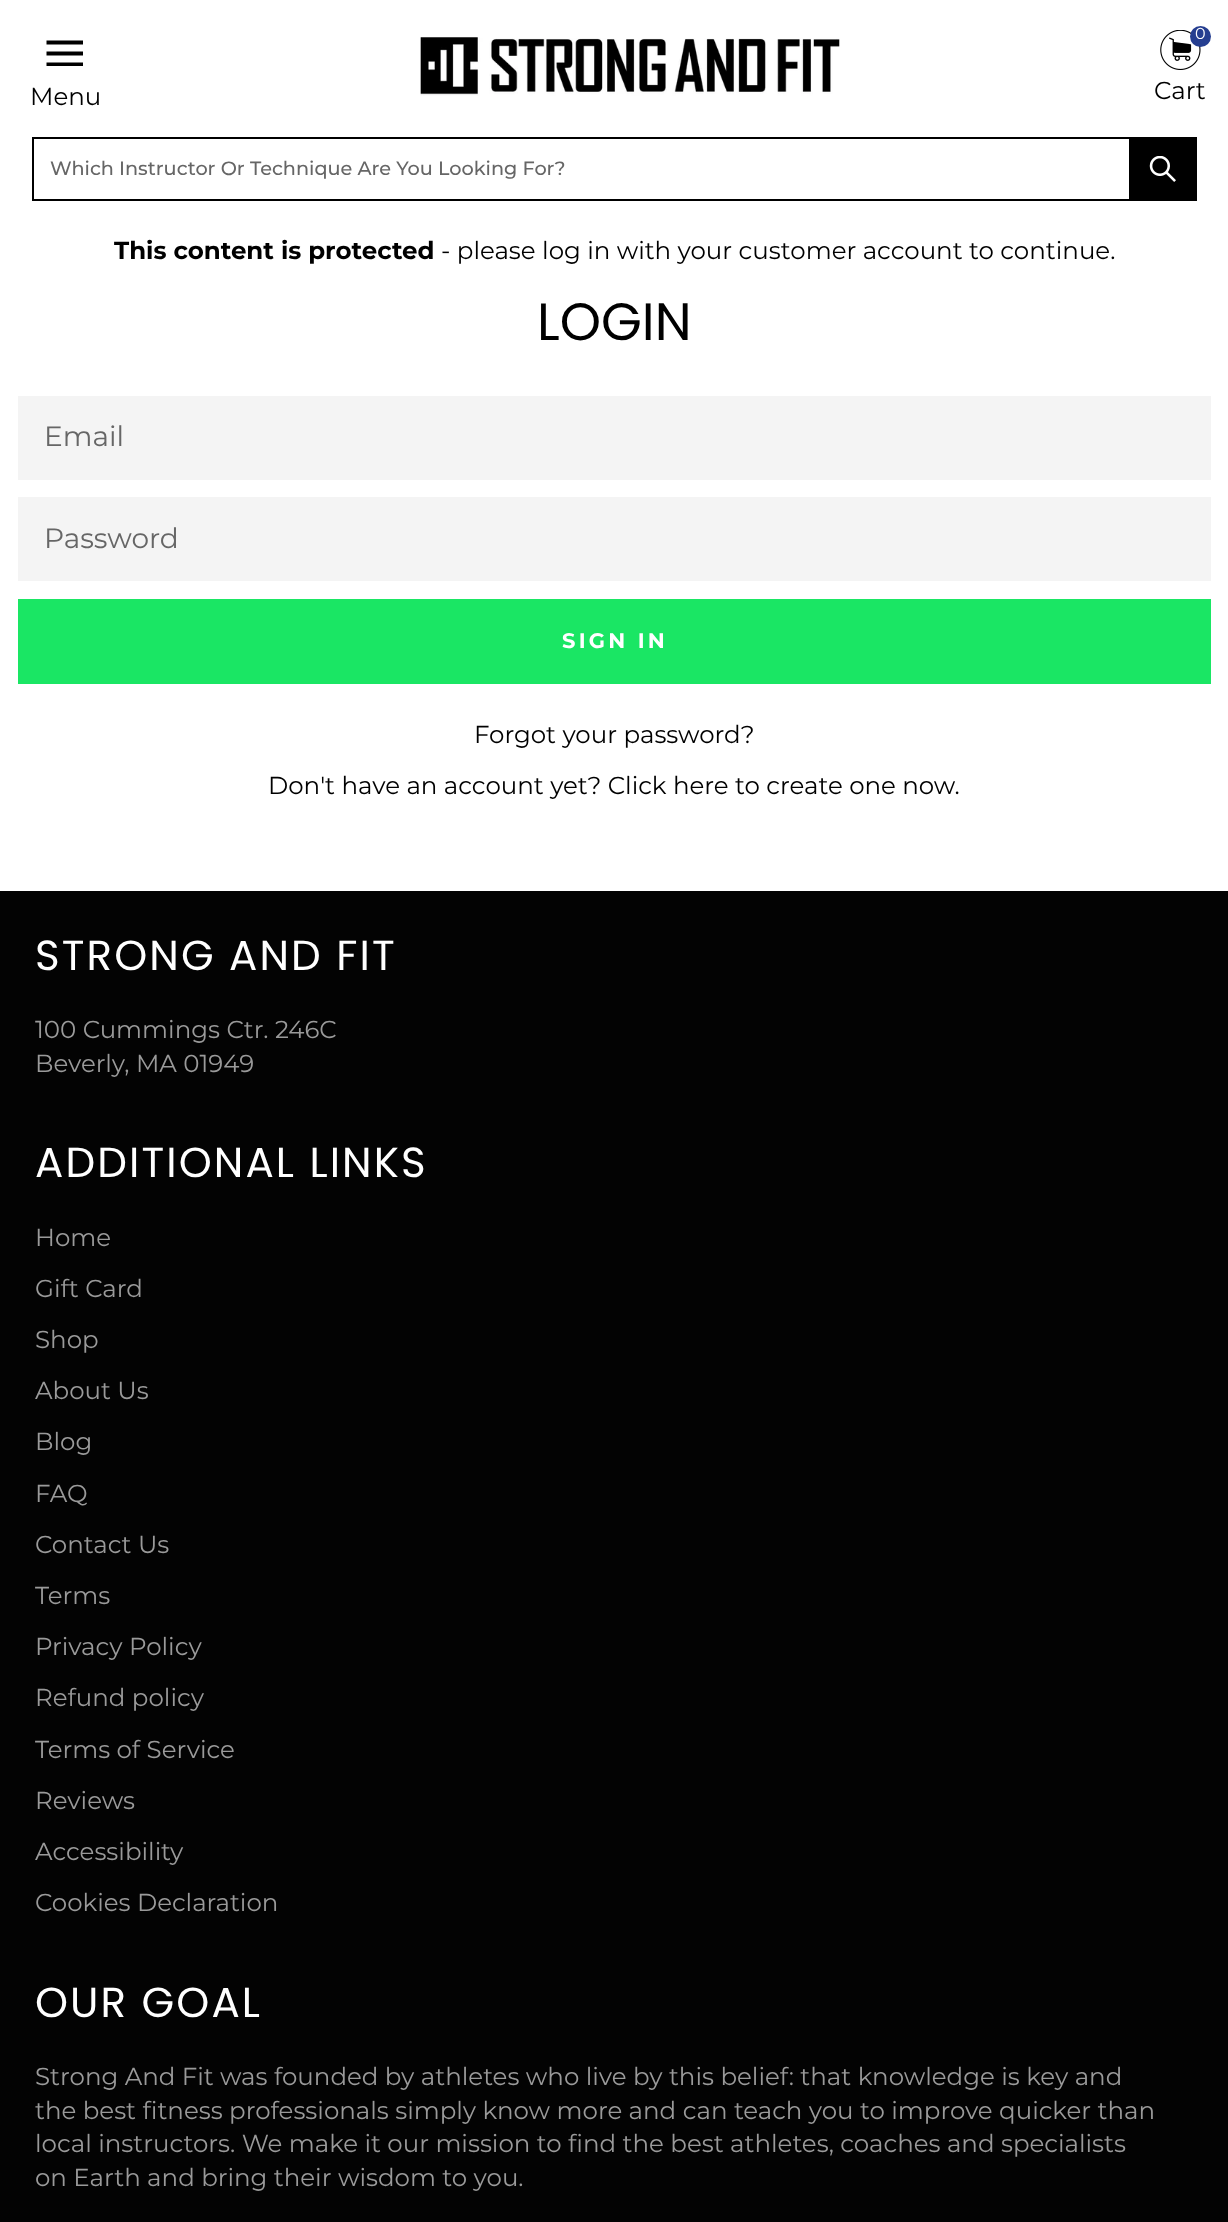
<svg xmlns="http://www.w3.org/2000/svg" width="1228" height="2222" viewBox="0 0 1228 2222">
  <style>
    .t1 { font: 24.5px Montserrat; fill: #000; }
    .t2 { font: 16px Montserrat; fill: #fff; }
    .t3 { font: 500 19.25px Montserrat; fill: #666; }
    .t4 { font: bold 24.5px Montserrat; fill: #000; }
    .t5 { font: 52.5px Poppins; fill: #000; }
    .t6 { font: 28px Montserrat; fill: #666; }
    .t7 { font: bold 21px Montserrat; letter-spacing: 3.25px; fill: #fff; }
    .t8 { font: 42px Poppins; letter-spacing: 2.1px; fill: #fff; }
    .t9 { font: 24.5px Montserrat; fill: #9a9a9a; }
  </style>
  <rect width="100%" height="100%" fill="#fff"/>
  <path d="M46.5 51.5H83V55.5H46.5ZM46.5 40.5H83V44.5H46.5ZM46.5 62.5H83V66H46.5Z" fill="#000"/>
  <text x="30" y="105" class="t1">Menu</text>
  <image x="420" y="37" width="420" height="59" href="images/1.png"/>
  <image x="1160" y="30" width="41" height="40" href="images/2.png"/>
  <circle cx="1200.5" cy="36.5" r="10.5" fill="#253e90"/>
  <text x="1195" y="39" class="t2">0</text>
  <text x="1154" y="99" class="t1">Cart</text>
  <rect x="33" y="138" width="1163" height="62" fill="none" stroke="#000" stroke-width="2"/>
  <text x="50" y="175" class="t3">Which Instructor Or Technique Are You Looking For?</text>
  <rect x="1129" y="139" width="66" height="60" fill="#000"/>
  <image x="1149" y="156" width="27" height="26" href="images/3.png"/>
  <text x="114" y="259" class="t4">This content is protected</text>
  <text x="441" y="259" class="t1">- please log in with your customer account to continue.</text>
  <text x="537" y="340" class="t5">LOGIN</text>
  <rect x="18" y="396" width="1193" height="84" fill="#f4f4f4"/>
  <text x="44" y="446" class="t6">Email</text>
  <rect x="18" y="497" width="1193" height="84" fill="#f4f4f4"/>
  <text x="44" y="548" class="t6">Password</text>
  <rect x="18" y="599" width="1193" height="85" fill="#1ae664"/>
  <text x="562" y="648" class="t7">SIGN IN</text>
  <text x="474" y="743" class="t1">Forgot your password?</text>
  <text x="268" y="794" class="t1">Don't have an account yet? Click here to create one now.</text>
  <rect x="0" y="891" width="1228" height="1331" fill="#030303"/>
  <text x="35" y="970" class="t8">STRONG AND FIT</text>
  <text x="35" y="1038" class="t9">100 Cummings Ctr. 246C</text>
  <text x="35" y="1072" class="t9">Beverly, MA 01949</text>
  <text x="35" y="1177" class="t8">ADDITIONAL LINKS</text>
  <text x="35" y="1246" class="t9">Home</text>
  <text x="35" y="1297" class="t9">Gift Card</text>
  <text x="35" y="1348" class="t9">Shop</text>
  <text x="35" y="1399" class="t9">About Us</text>
  <text x="35" y="1450" class="t9">Blog</text>
  <text x="35" y="1502" class="t9">FAQ</text>
  <text x="35" y="1553" class="t9">Contact Us</text>
  <text x="35" y="1604" class="t9">Terms</text>
  <text x="35" y="1655" class="t9">Privacy Policy</text>
  <text x="35" y="1706" class="t9">Refund policy</text>
  <text x="35" y="1758" class="t9">Terms of Service</text>
  <text x="35" y="1809" class="t9">Reviews</text>
  <text x="35" y="1860" class="t9">Accessibility</text>
  <text x="35" y="1911" class="t9">Cookies Declaration</text>
  <text x="35" y="2017" class="t8">OUR GOAL</text>
  <text x="35" y="2085" class="t9">Strong And Fit was founded by athletes who live by this belief: that knowledge is key and</text>
  <text x="35" y="2119" class="t9">the best fitness professionals simply know more and can teach you to improve quicker than</text>
  <text x="35" y="2152" class="t9">local instructors. We make it our mission to find the best athletes, coaches and specialists</text>
  <text x="35" y="2186" class="t9">on Earth and bring their wisdom to you.</text>
</svg>
